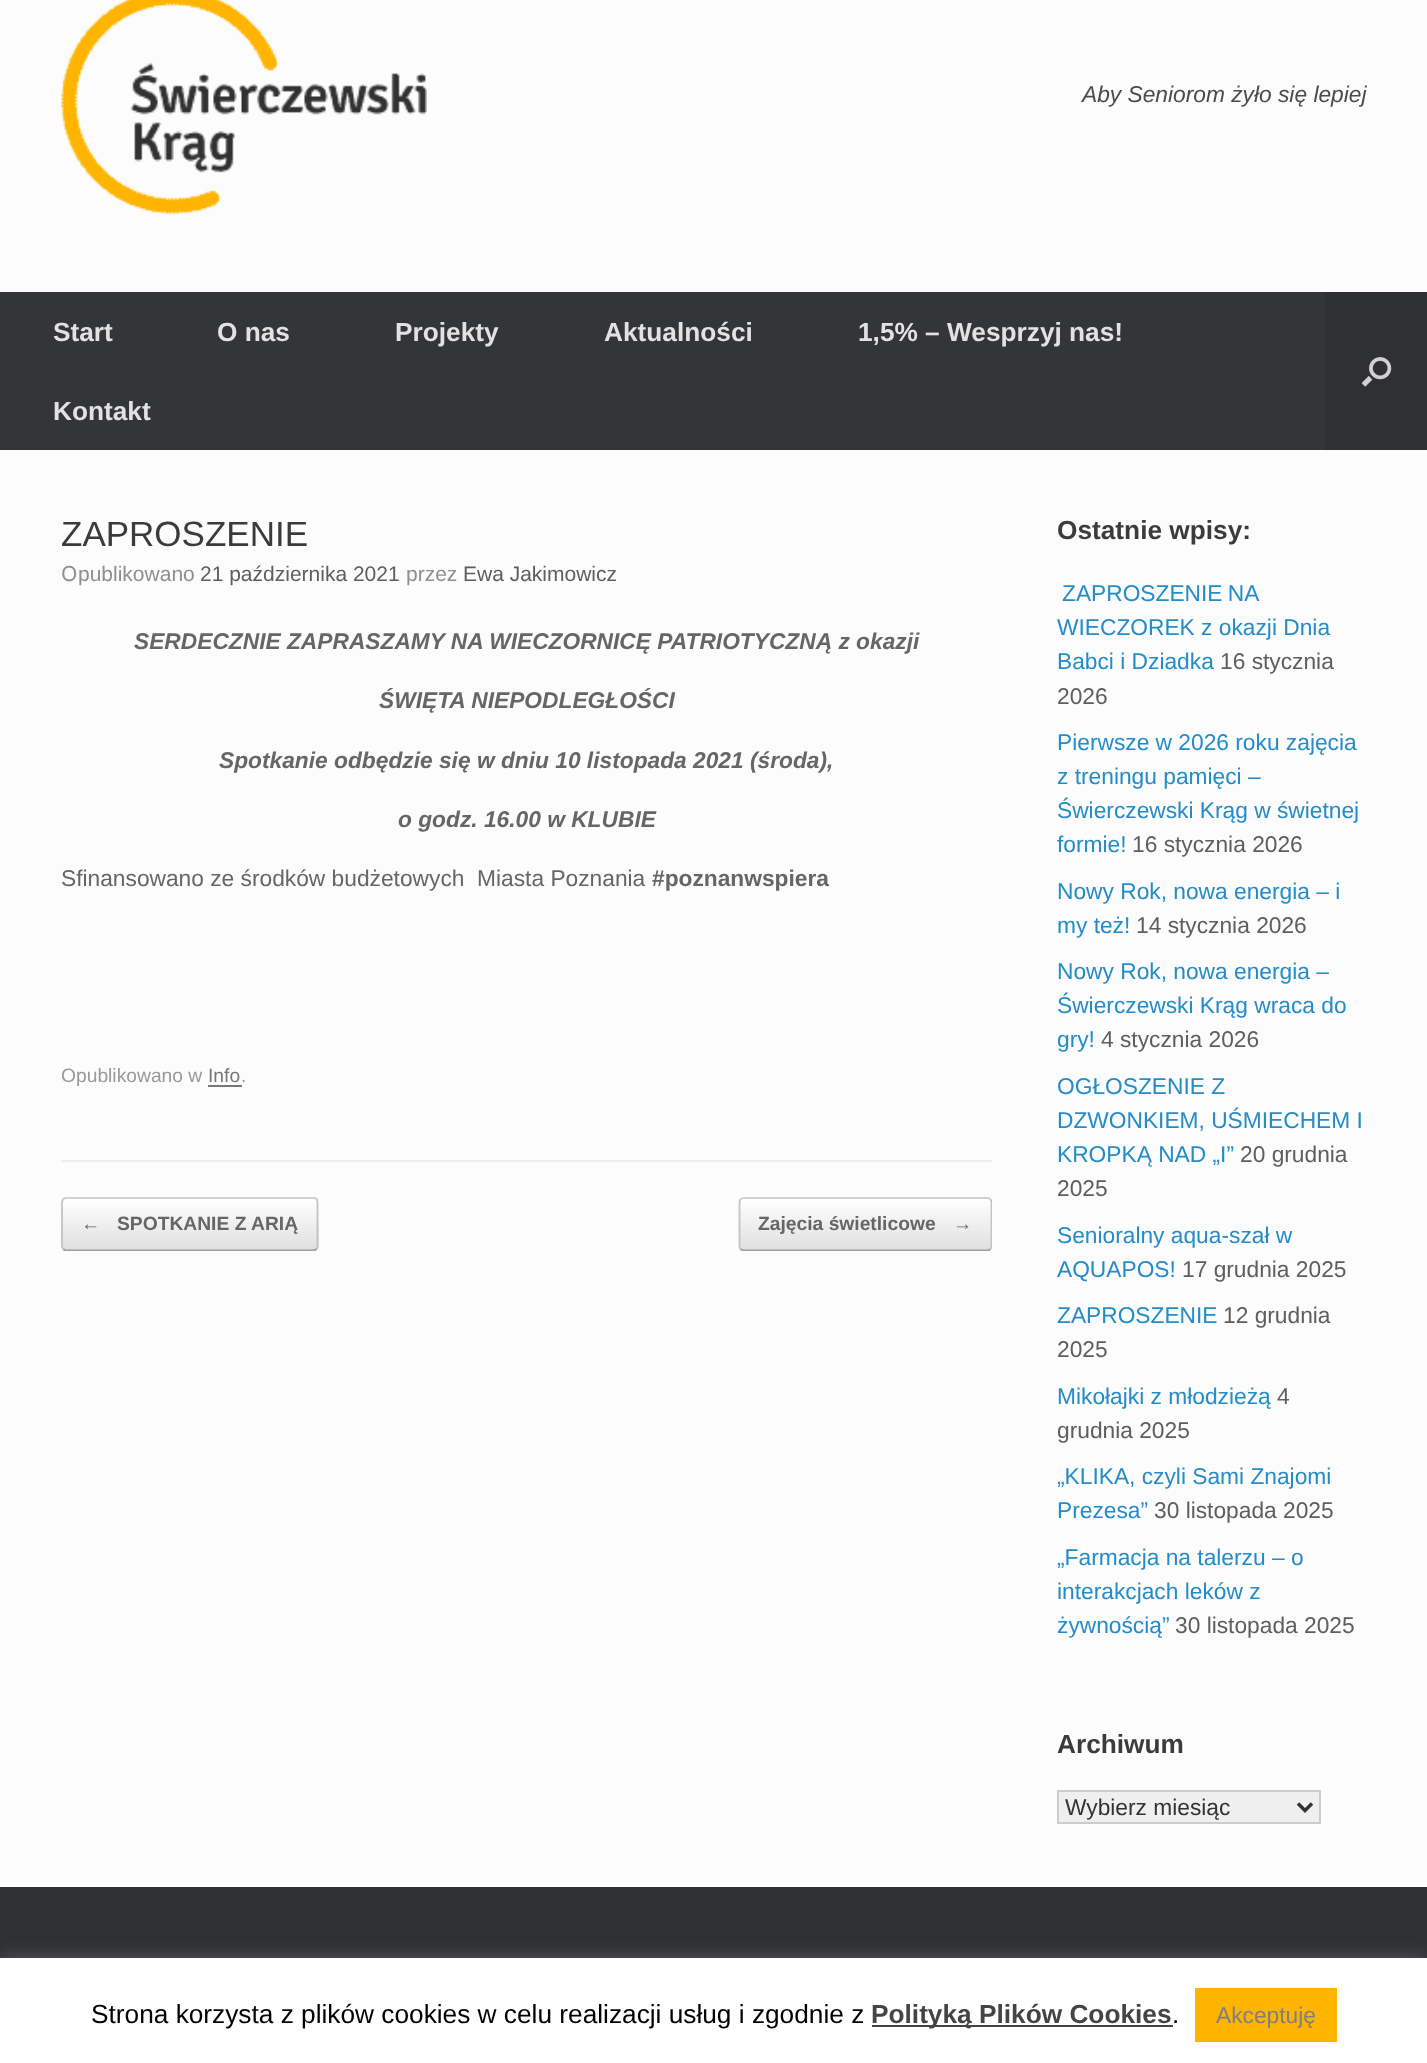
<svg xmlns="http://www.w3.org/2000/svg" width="1427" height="2063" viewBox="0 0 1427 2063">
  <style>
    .t1 { font: italic 22.75px Liberation Sans; fill: #4b4b4b; }
    .t2 { font: bold 26.25px Liberation Sans; fill: #e2e2e2; }
    .t3 { font: 35px Liberation Sans; fill: #3b3b3b; }
    .t4 { font: 21px Noto Sans; fill: #8f8f8f; }
    .t5 { font: 21px Liberation Sans; fill: #8f8f8f; }
    .t6 { font: 21px Liberation Sans; fill: #5e5e5e; }
    .t7 { font: italic bold 22.75px Liberation Sans; fill: #666; }
    .t8 { font: 22.75px Liberation Sans; fill: #666; }
    .t9 { font: bold 22.75px Liberation Sans; fill: #666; }
    .t10 { font: 19.25px Liberation Sans; fill: #999; }
    .t11 { font: 19.25px Liberation Sans; fill: #777; }
    .t12 { font: bold 19.25px Liberation Sans; fill: #666; }
    .t13 { font: bold 26.25px Liberation Sans; fill: #3b3b3b; }
    .t14 { font: 22.75px Liberation Sans; fill: #248cc8; }
    .t15 { font: 22.75px Liberation Sans; fill: #5e5e5e; }
    .t16 { font: 22.75px Liberation Sans; fill: #333; }
    .t17 { font: 26.25px Liberation Sans; fill: #000; }
    .t18 { font: bold 26.25px Liberation Sans; fill: #444; }
    .t19 { font: 22.75px Liberation Sans; fill: #7f7f7f; }
  </style>
  <defs>
    <clipPath id="clip1"><rect x="61" y="1197" width="258" height="54" rx="5"/></clipPath>
    <linearGradient id="g1" gradientUnits="userSpaceOnUse" x1="63" y1="1199" x2="63" y2="1148"><stop offset="0" stop-color="#dfdfdf"/><stop offset="1" stop-color="#fff"/></linearGradient>
    <linearGradient id="g2" gradientUnits="userSpaceOnUse" x1="63" y1="1250" x2="63" y2="1199"><stop offset="0" stop-color="#dfdfdf"/><stop offset="1" stop-color="#fff"/></linearGradient>
    <clipPath id="clip2"><rect x="61" y="1197" width="931" height="54"/></clipPath>
    <clipPath id="clip3"><rect x="739" y="1197" width="253" height="54" rx="5"/></clipPath>
    <linearGradient id="g3" gradientUnits="userSpaceOnUse" x1="740" y1="1250" x2="740" y2="1199"><stop offset="0" stop-color="#dfdfdf"/><stop offset="1" stop-color="#fff"/></linearGradient>
  </defs>
  <rect width="100%" height="100%" fill="#2f3033"/>
  <rect x="0" y="0" width="1427" height="292" fill="#fcfcfc"/>
  <image x="61" y="0" width="366" height="214" href="images/1.png"/>
  <text x="1082" y="102" class="t1">Aby Seniorom żyło się lepiej</text>
  <rect x="0" y="292" width="1325" height="158" fill="#343538"/>
  <text x="53" y="341" class="t2">Start</text>
  <text x="217" y="341" class="t2">O nas</text>
  <text x="395" y="341" class="t2">Projekty</text>
  <text x="604" y="341" class="t2">Aktualności</text>
  <text x="858" y="341" class="t2">1,5% – Wesprzyj nas!</text>
  <text x="53" y="420" class="t2">Kontakt</text>
  <image x="1361" y="357" width="31" height="30" href="images/2.png"/>
  <rect x="0" y="450" width="1427" height="1437" fill="#fcfcfc"/>
  <rect x="61" y="1160" width="931" height="2" fill="#eee"/>
  <text x="61" y="546" class="t3">ZAPROSZENIE</text>
  <text x="61" y="581" class="t4">O</text>
  <text x="78" y="581" class="t5">publikowano</text>
  <text x="200" y="581" class="t6">21 października 2021</text>
  <text x="406" y="581" class="t5">przez</text>
  <text x="463" y="581" class="t6">Ewa Jakimowicz</text>
  <text x="134" y="649" class="t7">SERDECZNIE ZAPRASZAMY NA WIECZORNICĘ PATRIOTYCZNĄ z okazji</text>
  <text x="379" y="708" class="t7">ŚWIĘTA NIEPODLEGŁOŚCI</text>
  <text x="219" y="768" class="t7">Spotkanie odbędzie się w dniu 10 listopada 2021 (środa),</text>
  <text x="398" y="827" class="t7">o godz. 16.00 w KLUBIE</text>
  <text x="61" y="886" class="t8" xml:space="preserve">Sfinansowano ze środków budżetowych  Miasta Poznania</text>
  <text x="652" y="886" class="t9">#poznanwspiera</text>
  <text x="61" y="1082" class="t10">Opublikowano w</text>
  <text x="208" y="1082" class="t11">Info</text>
  <rect x="208" y="1085" width="34" height="2" fill="#777"/>
  <text x="241" y="1082" class="t10">.</text>
  <g clip-path="url(#clip1)">
    <rect x="61" y="1197" width="258" height="2" fill="url(#g1)"/>
    <rect x="61" y="1199" width="258" height="51" fill="url(#g2)"/>
  </g>
  <path d="M63.5 1199C64 1198.5 65.5 1198 66.5 1198H313C314.5 1198 315.5 1198.5 316.5 1199" fill="none" stroke="#d2d2d2" stroke-width="1.8"/>
  <path d="M316.5 1199C317 1200 317.5 1201 317.5 1202V1246C317.5 1247 317 1248.5 316.5 1249" fill="none" stroke="#c3c3c3" stroke-width="1.8"/>
  <g clip-path="url(#clip2)">
    <path d="M316.5 1249C315.5 1250 314.5 1250.5 313 1250.5H66.5C65.5 1250.5 64 1250 63.5 1249" fill="none" stroke="#9f9f9f" stroke-width="1.8"/>
  </g>
  <path d="M63.5 1249C62.5 1248.5 62 1247 62 1246V1202C62 1201 62.5 1200 63.5 1199" fill="none" stroke="#c3c3c3" stroke-width="1.8"/>
  <text x="81" y="1230" class="t12">←</text>
  <text x="117" y="1230" class="t12">SPOTKANIE Z ARIĄ</text>
  <g clip-path="url(#clip3)">
    <rect x="739" y="1199" width="253" height="51" fill="url(#g3)"/>
  </g>
  <path d="M740.5 1199C741.5 1198.5 742.5 1198 744 1198H987C988 1198 989.5 1198.5 990 1199" fill="none" stroke="#d2d2d2" stroke-width="1.8"/>
  <g clip-path="url(#clip2)">
    <path d="M990 1199C991 1200 991.5 1201 991.5 1202V1246C991.5 1247 991 1248.5 990 1249" fill="none" stroke="#c3c3c3" stroke-width="1.8"/>
    <path d="M990 1249C989.5 1250 988 1250.5 987 1250.5H744C742.5 1250.5 741.5 1250 740.5 1249" fill="none" stroke="#9f9f9f" stroke-width="1.8"/>
  </g>
  <path d="M740.5 1249C740 1248.5 739.5 1247 739.5 1246V1202C739.5 1201 740 1200 740.5 1199" fill="none" stroke="#c3c3c3" stroke-width="1.8"/>
  <text x="758" y="1230" class="t12">Zajęcia świetlicowe</text>
  <text x="953" y="1230" class="t12">→</text>
  <text x="1057" y="539" class="t13">Ostatnie wpisy:</text>
  <text x="1062" y="601" word-spacing="-1" class="t14">ZAPROSZENIE NA</text>
  <text x="1057" y="635" class="t14">WIECZOREK z okazji Dnia</text>
  <text x="1057" y="669" class="t14">Babci i Dziadka</text>
  <text x="1220" y="669" class="t15">16 stycznia</text>
  <text x="1057" y="704" class="t15">2026</text>
  <text x="1057" y="750" class="t14">Pierwsze w 2026 roku zajęcia</text>
  <text x="1057" y="784" class="t14">z treningu pamięci –</text>
  <text x="1057" y="818" class="t14">Świerczewski Krąg w świetnej</text>
  <text x="1057" y="852" class="t14">formie!</text>
  <text x="1132" y="852" class="t15">16 stycznia 2026</text>
  <text x="1057" y="899" class="t14">Nowy Rok, nowa energia – i</text>
  <text x="1057" y="933" class="t14">my też!</text>
  <text x="1136" y="933" class="t15">14 stycznia 2026</text>
  <text x="1057" y="979" class="t14">Nowy Rok, nowa energia –</text>
  <text x="1057" y="1013" class="t14">Świerczewski Krąg wraca do</text>
  <text x="1057" y="1047" class="t14">gry!</text>
  <text x="1101" y="1047" class="t15">4 stycznia 2026</text>
  <text x="1057" y="1094" class="t14">OGŁOSZENIE Z</text>
  <text x="1057" y="1128" class="t14">DZWONKIEM, UŚMIECHEM I</text>
  <text x="1057" y="1162" class="t14">KROPKĄ NAD „I”</text>
  <text x="1240" y="1162" class="t15">20 grudnia</text>
  <text x="1057" y="1196" class="t15">2025</text>
  <text x="1057" y="1243" class="t14">Senioralny aqua-szał w</text>
  <text x="1057" y="1277" class="t14">AQUAPOS!</text>
  <text x="1182" y="1277" class="t15">17 grudnia 2025</text>
  <text x="1057" y="1323" class="t14">ZAPROSZENIE</text>
  <text x="1223" y="1323" class="t15">12 grudnia</text>
  <text x="1057" y="1357" class="t15">2025</text>
  <text x="1057" y="1404" class="t14">Mikołajki z młodzieżą</text>
  <text x="1277" y="1404" class="t15">4</text>
  <text x="1057" y="1438" class="t15">grudnia 2025</text>
  <text x="1057" y="1484" class="t14">„KLIKA, czyli Sami Znajomi</text>
  <text x="1057" y="1518" class="t14">Prezesa”</text>
  <text x="1154" y="1518" class="t15">30 listopada 2025</text>
  <text x="1057" y="1565" class="t14">„Farmacja na talerzu – o</text>
  <text x="1057" y="1599" class="t14">interakcjach leków z</text>
  <text x="1057" y="1633" class="t14">żywnością”</text>
  <text x="1175" y="1633" class="t15">30 listopada 2025</text>
  <text x="1057" y="1753" class="t13">Archiwum</text>
  <rect x="1058" y="1791" width="262" height="32" fill="#efefef" stroke="#ccc" stroke-width="2"/>
  <path d="M1298 1803.5L1305 1810.5L1312 1803.5" fill="none" stroke="#333" stroke-width="3.5"/>
  <text x="1065" y="1815" class="t16">Wybierz miesiąc</text>
  <rect x="0" y="1957" width="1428" height="105" fill="#acabab4d" filter="blur(9px)"/>
  <rect x="0" y="1958" width="1427" height="105" fill="#fff"/>
  <text x="91" y="2023" class="t17">Strona korzysta z plików cookies w celu realizacji usług i zgodnie z</text>
  <rect x="872" y="2025" width="301" height="2" fill="#444"/>
  <text x="871" y="2023" class="t18">Polityką Plików Cookies</text>
  <text x="1172" y="2023" class="t17">.</text>
  <rect x="1195" y="1988" width="142" height="54" fill="#ffb500"/>
  <text x="1216" y="2023" class="t19">Akceptuję</text>
</svg>
